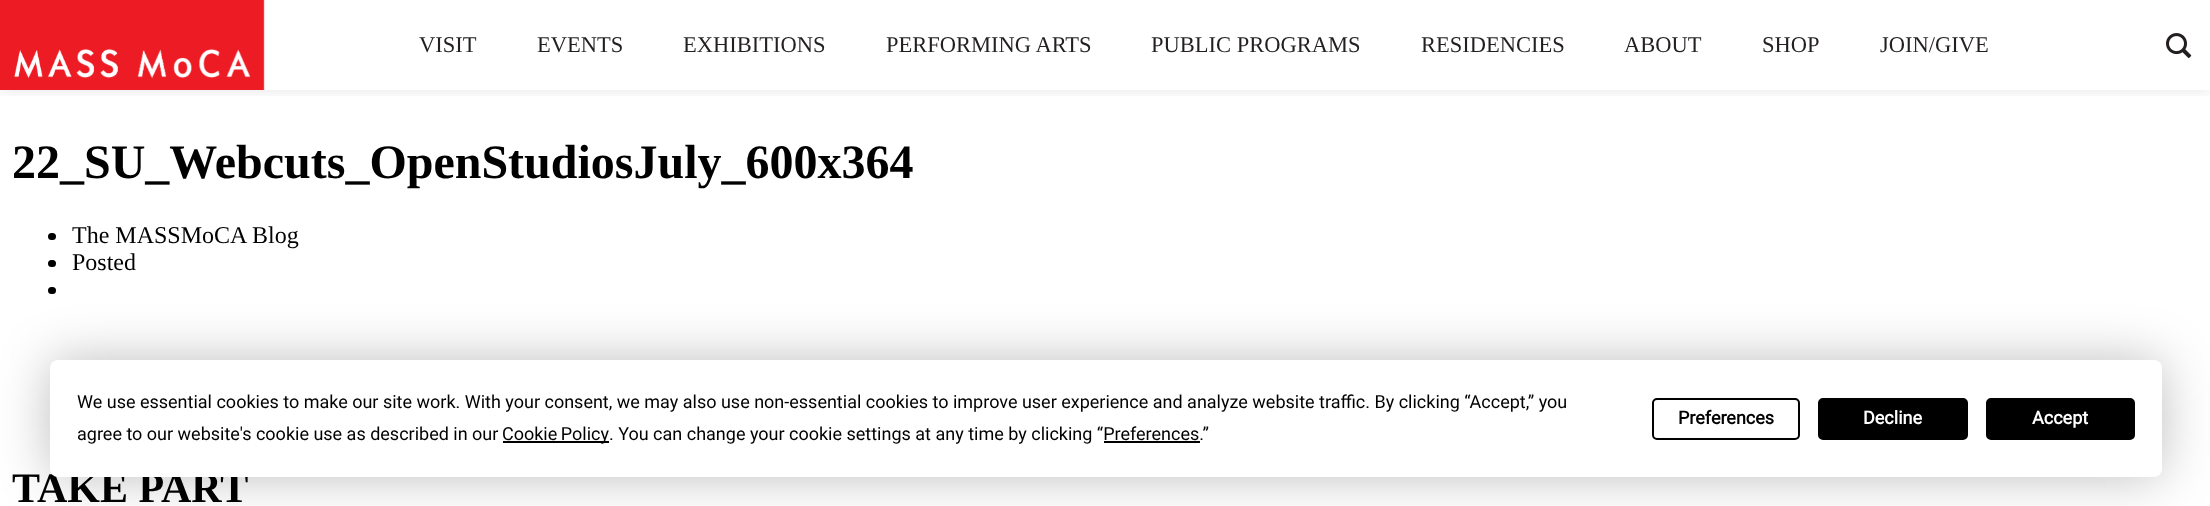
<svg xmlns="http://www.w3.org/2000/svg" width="2210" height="506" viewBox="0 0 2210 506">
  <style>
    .t1 { font: 22.5px Liberation Serif; fill: #231f20; }
    .t2 { font: bold 48px Liberation Serif; fill: #000; }
    .t3 { font: 24px Liberation Serif; fill: #000; }
    .t4 { font: bold 42px Liberation Serif; fill: #000; }
    .t5 { font: 18px Roboto; fill: #000; }
    .t6 { font: bold 18px Roboto; fill: #000; }
    .t7 { font: bold 18px Roboto; fill: #fff; }
  </style>
  <defs>
    <clipPath id="clip1"><rect x="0" y="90" width="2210" height="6"/></clipPath>
  </defs>
  <rect width="100%" height="100%" fill="#fff"/>
  <g clip-path="url(#clip1)">
    <rect x="0" y="0" width="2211" height="90" fill="#0000001a" filter="blur(7.5px)"/>
  </g>
  <image x="0" y="0" width="265" height="90" href="images/1.png"/>
  <text x="419" y="52" class="t1">VISIT</text>
  <text x="537" y="52" class="t1">EVENTS</text>
  <text x="683" y="52" class="t1">EXHIBITIONS</text>
  <text x="886" y="52" class="t1">PERFORMING ARTS</text>
  <text x="1151" y="52" class="t1">PUBLIC PROGRAMS</text>
  <text x="1421" y="52" class="t1">RESIDENCIES</text>
  <text x="1624" y="52" class="t1">ABOUT</text>
  <text x="1762" y="52" class="t1">SHOP</text>
  <text x="1880" y="52" class="t1">JOIN/GIVE</text>
  <image x="2166" y="33" width="26" height="26" href="images/2.png"/>
  <text x="12" y="178" class="t2">22_SU_Webcuts_OpenStudiosJuly_600x364</text>
  <rect x="48" y="233" width="8" height="7" rx="3.5" fill="#000"/>
  <text x="72" y="243" class="t3">The MASSMoCA Blog</text>
  <rect x="48" y="260" width="8" height="7" rx="3.5" fill="#000"/>
  <text x="72" y="270" class="t3">Posted</text>
  <rect x="48" y="287" width="8" height="7" rx="3.5" fill="#000"/>
  <text x="12" y="502" class="t4">TAKE PART</text>
  <rect x="50" y="360" width="2112" height="117" rx="8" fill="#00000040" filter="blur(26px)"/>
  <rect x="50" y="360" width="2112" height="117" rx="8" fill="#fff"/>
  <text x="77" y="408" class="t5">We use essential cookies to make our site work. With your consent, we may also use non-essential cookies to improve user experience and analyze website traffic. By clicking “Accept,” you</text>
  <text x="77" y="440" class="t5">agree to our website's cookie use as described in our</text>
  <rect x="503" y="441" width="106" height="2" fill="#000"/>
  <text x="502" y="440" word-spacing="-1" class="t5">Cookie Policy</text>
  <text x="609" y="440" class="t5">. You can change your cookie settings at any time by clicking “Preferences.”</text>
  <rect x="1104" y="441" width="96" height="2" fill="#000"/>
  <rect x="1653" y="399" width="146" height="40" rx="4" fill="none" stroke="#000" stroke-width="2"/>
  <text x="1678" y="424" class="t6">Preferences</text>
  <rect x="1819" y="399" width="148" height="40" rx="4" fill="#000" stroke="#000" stroke-width="2"/>
  <text x="1863" y="424" class="t7">Decline</text>
  <rect x="1987" y="399" width="147" height="40" rx="4" fill="#000" stroke="#000" stroke-width="2"/>
  <text x="2032" y="424" class="t7">Accept</text>
</svg>
